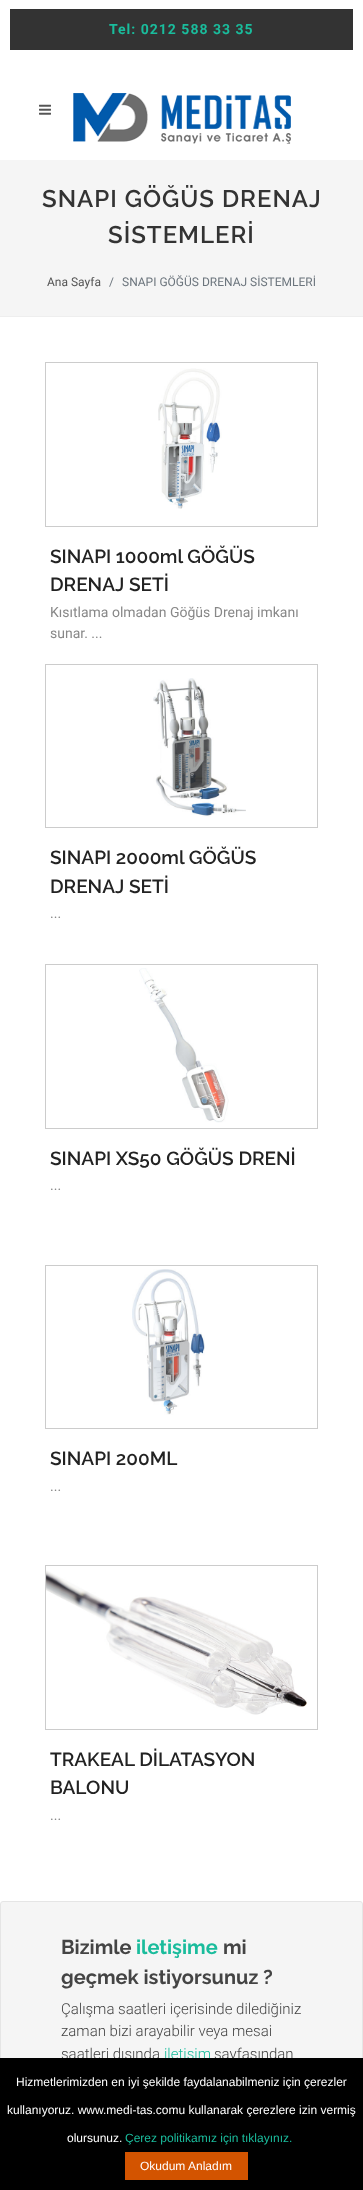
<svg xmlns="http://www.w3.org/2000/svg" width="363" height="2190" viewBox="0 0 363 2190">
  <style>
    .t1 { font: bold 14px Roboto; letter-spacing: 1px; fill: #1abc9c; }
    .t2 { font: 600 24px Raleway; letter-spacing: 1px; fill: #333; }
    .t3 { font: 12px Roboto; fill: #555; }
    .t4 { font: 12px Roboto; fill: #6c757d; }
    .t5 { font: 600 19px Raleway; fill: #222; }
    .t6 { font: 14px Roboto; fill: #888; }
    .t7 { font: bold 20px Raleway; fill: #444; }
    .t8 { font: bold 20px Raleway; fill: #1abc9c; }
    .t9 { font: 300 15px Roboto; fill: #444; }
    .t10 { font: 300 15px Roboto; fill: #1abc9c; }
    .t11 { font: 12px Liberation Sans; fill: #fff; }
    .t12 { font: 12px Liberation Sans; fill: #1abc9c; }
  </style>
  <rect width="100%" height="100%" fill="#fff"/>
  <rect x="10" y="9" width="343" height="41" fill="#333"/>
  <text x="109" y="34" class="t1">Tel: 0212 588 33 35</text>
  <rect x="0" y="160" width="363" height="156" fill="#f5f5f5"/>
  <image x="39" y="104" width="12" height="11" href="images/1.png"/>
  <image x="73" y="93" width="218" height="51" href="images/2.png"/>
  <rect x="0" y="316" width="363" height="1" fill="#eee"/>
  <text x="42" y="207" class="t2">SNAPI GÖĞÜS DRENAJ</text>
  <text x="108" y="243" class="t2">SİSTEMLERİ</text>
  <text x="47" y="286" class="t3">Ana Sayfa</text>
  <text x="109" y="286" class="t4">/</text>
  <text x="122" y="286" class="t4">SNAPI GÖĞÜS DRENAJ SİSTEMLERİ</text>
  <rect x="45.5" y="362.5" width="272" height="164" fill="none" stroke="#ccc"/>
  <image x="158" y="368" width="64" height="141" href="images/3.png"/>
  <text x="50" y="563" class="t5">SINAPI 1000ml GÖĞÜS</text>
  <text x="50" y="591" class="t5">DRENAJ SETİ</text>
  <text x="50" y="617" class="t6">Kısıtlama olmadan Göğüs Drenaj imkanı</text>
  <text x="50" y="638" class="t6">sunar. ...</text>
  <rect x="45.5" y="664.5" width="272" height="163" fill="none" stroke="#ccc"/>
  <image x="153" y="678" width="93" height="139" href="images/4.png"/>
  <text x="50" y="864" class="t5">SINAPI 2000ml GÖĞÜS</text>
  <text x="50" y="893" class="t5">DRENAJ SETİ</text>
  <text x="50" y="918" class="t6">...</text>
  <rect x="45.5" y="964.5" width="272" height="164" fill="none" stroke="#ccc"/>
  <image x="139" y="968" width="90" height="155" href="images/5.png"/>
  <text x="50" y="1165" class="t5">SINAPI XS50 GÖĞÜS DRENİ</text>
  <text x="50" y="1190" class="t6">...</text>
  <rect x="45.5" y="1265.5" width="272" height="163" fill="none" stroke="#ccc"/>
  <image x="132" y="1269" width="73" height="146" href="images/6.png"/>
  <text x="50" y="1465" class="t5">SINAPI 200ML</text>
  <text x="50" y="1491" class="t6">...</text>
  <rect x="45.5" y="1565.5" width="272" height="164" fill="none" stroke="#ccc"/>
  <image x="46" y="1570" width="261" height="145" href="images/7.png"/>
  <text x="50" y="1766" class="t5">TRAKEAL DİLATASYON</text>
  <text x="50" y="1794" class="t5">BALONU</text>
  <text x="50" y="1820" class="t6">...</text>
  <rect x="0.5" y="1901.5" width="362" height="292" rx="2.5" fill="#f5f5f5" stroke="#e5e5e5"/>
  <text x="61" y="1954" class="t7">Bizimle</text>
  <text x="136" y="1954" class="t8">iletişime</text>
  <text x="223" y="1954" class="t7">mi</text>
  <text x="61" y="1984" class="t7">geçmek istiyorsunuz ?</text>
  <text x="61" y="2014" class="t9">Çalışma saatleri içerisinde dilediğiniz</text>
  <text x="61" y="2036" class="t9">zaman bizi arayabilir veya mesai</text>
  <text x="61" y="2059" class="t9">saatleri dışında</text>
  <text x="164" y="2059" class="t10">iletişim</text>
  <text x="214" y="2059" class="t9">sayfasından</text>
  <rect x="0" y="2058" width="363" height="132" fill="#000"/>
  <text x="16" y="2086" class="t11">Hizmetlerimizden en iyi şekilde faydalanabilmeniz için çerezler</text>
  <text x="7" y="2114" class="t11">kullanıyoruz. www.medi-tas.comu kullanarak çerezlere izin vermiş</text>
  <text x="67" y="2142" class="t11">olursunuz.</text>
  <text x="125" y="2142" class="t12">Çerez politikamız için tıklayınız.</text>
  <rect x="125" y="2152" width="123" height="28" fill="#d35400"/>
  <text x="140" y="2170" class="t11">Okudum Anladım</text>
</svg>
